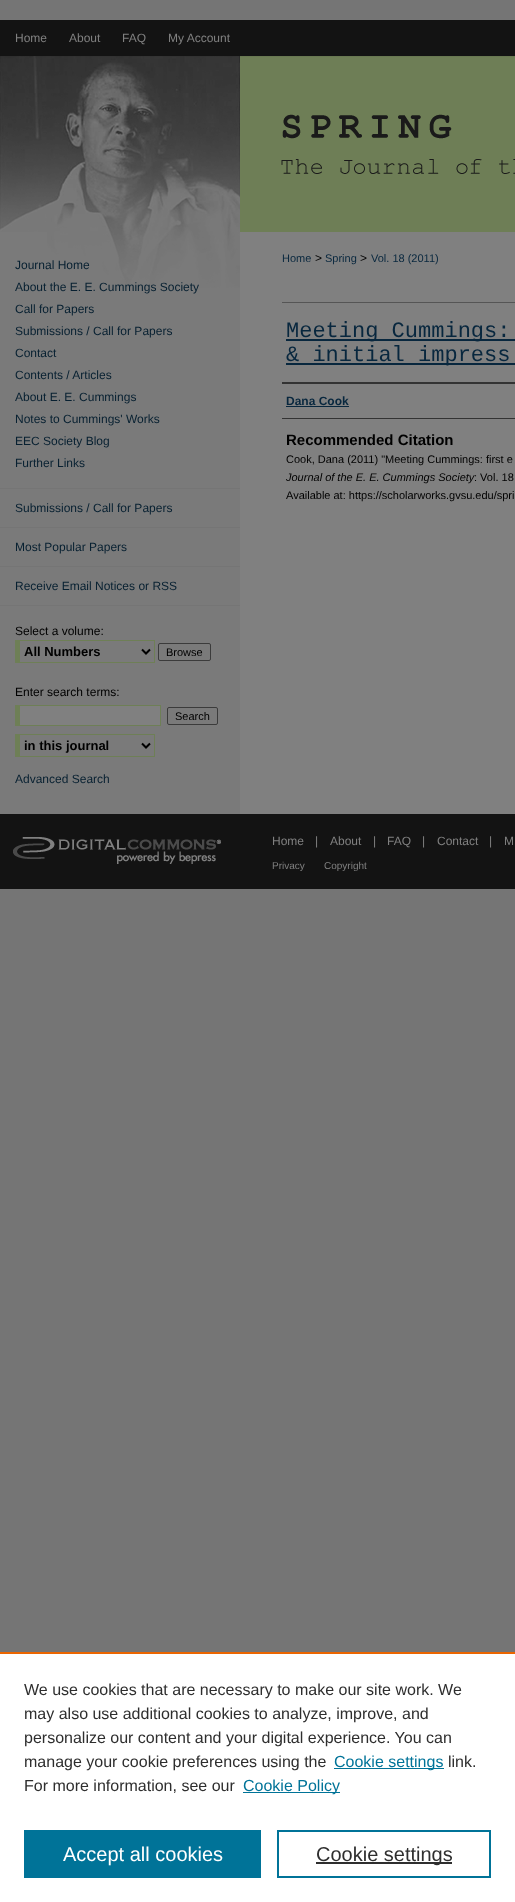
<svg xmlns="http://www.w3.org/2000/svg" width="515" height="1902" viewBox="0 0 515 1902">
  <style>
    .t1 { font: 12px Liberation Sans; fill: #808080; }
    .t2 { font: 12px Liberation Sans; fill: #072031; }
    .t3 { font: 12px Liberation Sans; fill: #000; }
    .t4 { font: bold 13px Liberation Sans; fill: #000; }
    .t5 { font: 11px Liberation Sans; fill: #000; }
    .t6 { font: 11px Liberation Sans; fill: #08273e; }
    .t7 { font: 22px Liberation Mono; fill: #08273e; }
    .t8 { font: bold 12px Liberation Sans; fill: #08273e; }
    .t9 { font: bold 15px Liberation Sans; fill: #000; }
    .t10 { font: italic 11px Liberation Sans; fill: #000; }
    .t11 { font: 10px Liberation Sans; fill: #808080; }
    .t12 { font: 16px Liberation Sans; fill: #2e2e2e; }
    .t13 { font: 16px Liberation Sans; fill: #007398; }
    .t14 { font: 20px Liberation Sans; fill: #fff; }
    .t15 { font: 20px Liberation Sans; fill: #2e2e2e; }
  </style>
  <rect width="100%" height="100%" fill="#757575"/>
  <rect x="0" y="20" width="515" height="36" fill="#131313"/>
  <text x="15" y="42" class="t1">Home</text>
  <text x="69" y="42" class="t1">About</text>
  <text x="122" y="42" class="t1">FAQ</text>
  <text x="168" y="42" class="t1">My Account</text>
  <image x="0" y="56" width="515" height="176" href="images/1.png"/>
  <rect x="0" y="232" width="240" height="582" fill="#7a7a7a"/>
  <rect x="240" y="232" width="275" height="582" fill="#808080"/>
  <image x="47" y="232" width="193" height="56" href="images/2.png"/>
  <text x="15" y="269" class="t2">Journal Home</text>
  <text x="15" y="291" class="t2">About the E. E. Cummings Society</text>
  <text x="15" y="313" class="t2">Call for Papers</text>
  <text x="15" y="335" class="t2">Submissions / Call for Papers</text>
  <text x="15" y="357" class="t2">Contact</text>
  <text x="15" y="379" class="t2">Contents / Articles</text>
  <text x="15" y="401" class="t2">About E. E. Cummings</text>
  <text x="15" y="423" class="t2">Notes to Cummings' Works</text>
  <text x="15" y="445" class="t2">EEC Society Blog</text>
  <text x="15" y="467" class="t2">Further Links</text>
  <rect x="0" y="488" width="240" height="1" fill="#757575"/>
  <rect x="0" y="527" width="240" height="1" fill="#757575"/>
  <text x="15" y="512" class="t2">Submissions / Call for Papers</text>
  <rect x="0" y="566" width="240" height="1" fill="#757575"/>
  <text x="15" y="551" class="t2">Most Popular Papers</text>
  <rect x="0" y="605" width="240" height="1" fill="#757575"/>
  <text x="15" y="590" class="t2">Receive Email Notices or RSS</text>
  <text x="15" y="635" class="t3">Select a volume:</text>
  <rect x="15" y="640" width="140" height="1" fill="#6e7f56"/>
  <rect x="154" y="640" width="1" height="23" fill="#6e7f56"/>
  <rect x="15" y="662" width="140" height="1" fill="#6e7f56"/>
  <rect x="15" y="640" width="5" height="23" fill="#6e7f56"/>
  <path d="M142 649.5L146 653.5L150 649.5" fill="none" stroke="#000" stroke-width="2"/>
  <text x="24" y="656" class="t4">All Numbers</text>
  <rect x="158.5" y="643.5" width="52" height="17" rx="1.5" fill="none" stroke="#3b3b3b"/>
  <text x="166" y="656" class="t5">Browse</text>
  <text x="15" y="696" class="t3">Enter search terms:</text>
  <rect x="20" y="706" width="140" height="19" fill="#808080"/>
  <rect x="15" y="705" width="146" height="1" fill="#6e7f56"/>
  <rect x="160" y="705" width="1" height="21" fill="#6e7f56"/>
  <rect x="15" y="725" width="146" height="1" fill="#6e7f56"/>
  <rect x="15" y="705" width="5" height="21" fill="#6e7f56"/>
  <rect x="167.5" y="707.5" width="50" height="17" rx="1.5" fill="none" stroke="#3b3b3b"/>
  <text x="175" y="720" class="t5">Search</text>
  <rect x="15" y="734" width="140" height="1" fill="#6e7f56"/>
  <rect x="154" y="734" width="1" height="23" fill="#6e7f56"/>
  <rect x="15" y="756" width="140" height="1" fill="#6e7f56"/>
  <rect x="15" y="734" width="5" height="23" fill="#6e7f56"/>
  <path d="M142 743.5L146 747.5L150 743.5" fill="none" stroke="#000" stroke-width="2"/>
  <text x="24" y="750" class="t4">in this journal</text>
  <text x="15" y="783" class="t2">Advanced Search</text>
  <text x="282" y="262" class="t6">Home</text>
  <text x="315" y="262" class="t3">&gt;</text>
  <text x="325" y="262" class="t6">Spring</text>
  <text x="360" y="262" class="t3">&gt;</text>
  <text x="371" y="262" class="t6">Vol. 18 (2011)</text>
  <rect x="282" y="302" width="233" height="1" fill="#555"/>
  <rect x="286" y="339" width="229" height="2" fill="#08273e"/>
  <text x="286" y="337" class="t7">Meeting Cummings:</text>
  <rect x="286" y="363" width="229" height="2" fill="#08273e"/>
  <text x="286" y="361" class="t7">&amp; initial impress</text>
  <rect x="282" y="382" width="233" height="2" fill="#333"/>
  <rect x="282" y="418" width="233" height="1" fill="#333"/>
  <text x="286" y="405" class="t8">Dana Cook</text>
  <rect x="286" y="406" width="63" height="1" fill="#08273e"/>
  <text x="286" y="445" class="t9">Recommended Citation</text>
  <text x="286" y="463" class="t5">Cook, Dana (2011) "Meeting Cummings: first e</text>
  <text x="286" y="481" class="t10">Journal of the E. E. Cummings Society</text>
  <text x="474" y="481" class="t5">: Vol. 18</text>
  <text x="286" y="499" class="t5">Available at: https://scholarworks.gvsu.edu/spri</text>
  <rect x="0" y="814" width="515" height="75" fill="#131313"/>
  <image x="13" y="837" width="208" height="27" href="images/3.png"/>
  <text x="272" y="845" class="t1">Home</text>
  <text x="315" y="845" class="t1">|</text>
  <text x="330" y="845" class="t1">About</text>
  <text x="373" y="845" class="t1">|</text>
  <text x="387" y="845" class="t1">FAQ</text>
  <text x="422" y="845" class="t1">|</text>
  <text x="437" y="845" class="t1">Contact</text>
  <text x="489" y="845" class="t1">|</text>
  <text x="504" y="845" class="t1">M</text>
  <text x="272" y="869" class="t11">Privacy</text>
  <text x="324" y="869" class="t11">Copyright</text>
  <rect x="0" y="1654" width="515" height="248" fill="#fff"/>
  <rect x="0" y="1652" width="515" height="2" fill="#eb6500"/>
  <text x="24" y="1695" class="t12">We use cookies that are necessary to make our site work. We</text>
  <text x="24" y="1719" class="t12">may also use additional cookies to analyze, improve, and</text>
  <text x="24" y="1743" class="t12">personalize our content and your digital experience. You can</text>
  <text x="24" y="1767" class="t12">manage your cookie preferences using the</text>
  <rect x="334" y="1768" width="110" height="1" fill="#007398"/>
  <text x="334" y="1767" class="t13">Cookie settings</text>
  <text x="448" y="1767" class="t12">link.</text>
  <text x="24" y="1791" class="t12">For more information, see our</text>
  <rect x="243" y="1792" width="97" height="1" fill="#007398"/>
  <text x="243" y="1791" class="t13">Cookie Policy</text>
  <rect x="24" y="1830" width="237" height="48" fill="#007398"/>
  <text x="63" y="1861" class="t14">Accept all cookies</text>
  <rect x="278" y="1831" width="212" height="46" fill="none" stroke="#007398" stroke-width="2"/>
  <rect x="316" y="1862" width="136" height="2" fill="#2e2e2e"/>
  <text x="316" y="1861" class="t15">Cookie settings</text>
</svg>
